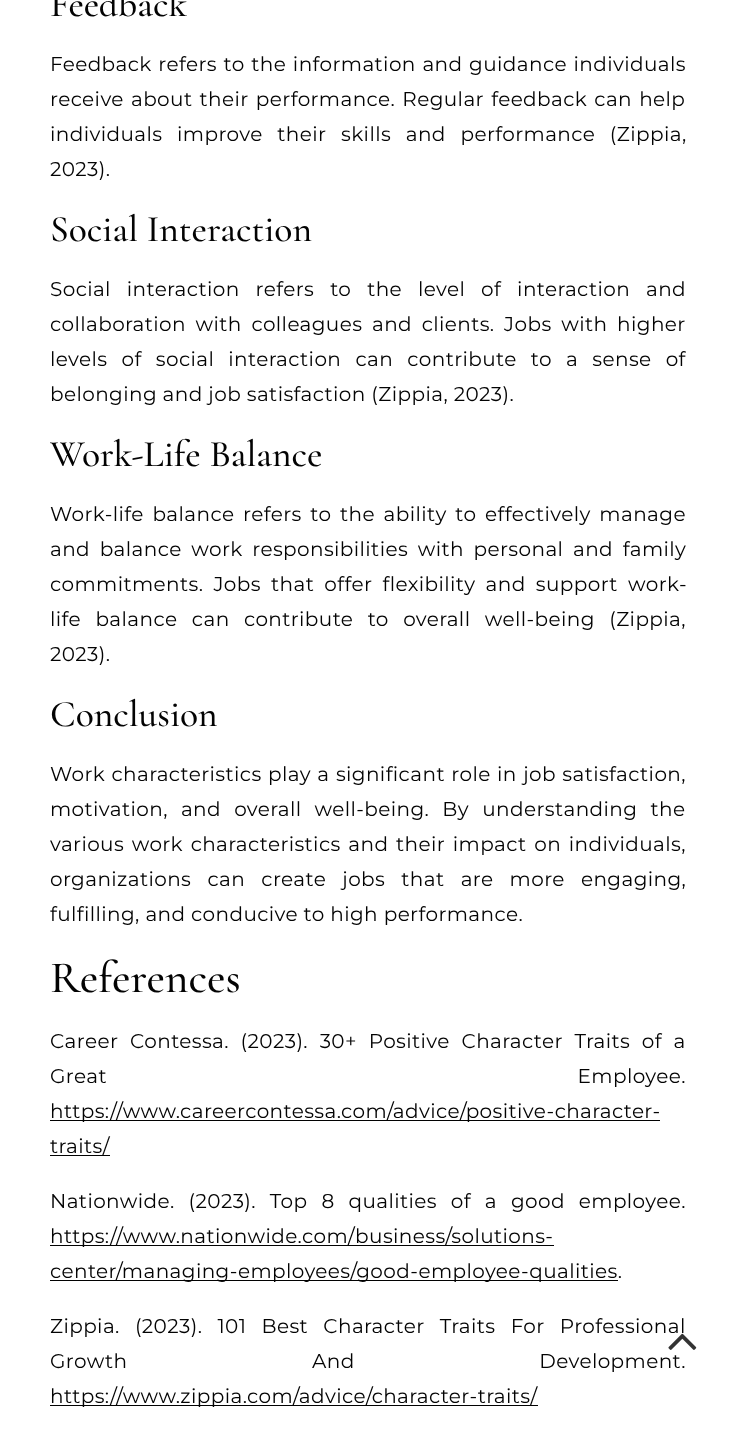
<svg xmlns="http://www.w3.org/2000/svg" width="736" height="1439" viewBox="0 0 736 1439">
  <style>
    .t1 { font: 500 37.5px Cormorant Garamond; fill: #030303; }
    .t2 { font: 100 20px Montserrat; letter-spacing: 0.4px; fill: #030303; }
    .t3 { font: 500 45px Cormorant Garamond; fill: #030303; }
  </style>
  <rect width="100%" height="100%" fill="#fff"/>
  <text x="50" y="16" class="t1">Feedback</text>
  <text x="50" y="71" word-spacing="1" class="t2">Feedback refers to the information and guidance individuals</text>
  <text x="50" y="106" word-spacing="1.5" class="t2">receive about their performance. Regular feedback can help</text>
  <text x="50" y="141" word-spacing="9" class="t2">individuals improve their skills and performance (Zippia,</text>
  <text x="50" y="176" class="t2">2023).</text>
  <text x="50" y="241" class="t1">Social Interaction</text>
  <text x="50" y="296" word-spacing="10.25" class="t2">Social interaction refers to the level of interaction and</text>
  <text x="50" y="331" word-spacing="4" class="t2">collaboration with colleagues and clients. Jobs with higher</text>
  <text x="50" y="366" word-spacing="8.5" class="t2">levels of social interaction can contribute to a sense of</text>
  <text x="50" y="401" class="t2">belonging and job satisfaction (Zippia, 2023).</text>
  <text x="50" y="466" class="t1">Work-Life Balance</text>
  <text x="50" y="521" word-spacing="3" class="t2">Work-life balance refers to the ability to effectively manage</text>
  <text x="50" y="556" word-spacing="4" class="t2">and balance work responsibilities with personal and family</text>
  <text x="50" y="591" word-spacing="4.5" class="t2">commitments. Jobs that offer flexibility and support work-</text>
  <text x="50" y="626" word-spacing="8.75" class="t2">life balance can contribute to overall well-being (Zippia,</text>
  <text x="50" y="661" class="t2">2023).</text>
  <text x="50" y="726" class="t1">Conclusion</text>
  <text x="50" y="781" word-spacing="0.75" class="t2">Work characteristics play a significant role in job satisfaction,</text>
  <text x="50" y="816" word-spacing="7.5" class="t2">motivation, and overall well-being. By understanding the</text>
  <text x="50" y="851" word-spacing="2" class="t2">various work characteristics and their impact on individuals,</text>
  <text x="50" y="886" word-spacing="10.5" class="t2">organizations can create jobs that are more engaging,</text>
  <text x="50" y="921" class="t2">fulfilling, and conducive to high performance.</text>
  <text x="50" y="992" class="t3">References</text>
  <text x="50" y="1048" word-spacing="6" class="t2">Career Contessa. (2023). 30+ Positive Character Traits of a</text>
  <text x="50" y="1083" word-spacing="465" class="t2">Great Employee.</text>
  <rect x="50" y="1120" width="610" height="1" fill="#010101"/>
  <text x="50" y="1118" class="t2">https://www.careercontessa.com/advice/positive-character-</text>
  <text x="50" y="1153" class="t2">traits/</text>
  <rect x="50" y="1155" width="60" height="1" fill="#010101"/>
  <text x="50" y="1208" word-spacing="8.25" class="t2">Nationwide. (2023). Top 8 qualities of a good employee.</text>
  <rect x="50" y="1245" width="504" height="1" fill="#010101"/>
  <text x="50" y="1243" class="t2">https://www.nationwide.com/business/solutions-</text>
  <rect x="50" y="1280" width="568" height="1" fill="#010101"/>
  <text x="50" y="1278" class="t2">center/managing-employees/good-employee-qualities.</text>
  <text x="50" y="1333" word-spacing="9.5" class="t2">Zippia. (2023). 101 Best Character Traits For Professional</text>
  <text x="50" y="1368" word-spacing="179" class="t2">Growth And Development.</text>
  <rect x="50" y="1405" width="488" height="1" fill="#010101"/>
  <text x="50" y="1403" class="t2">https://www.zippia.com/advice/character-traits/</text>
  <image x="668" y="1333" width="29" height="17" href="images/1.png"/>
</svg>
